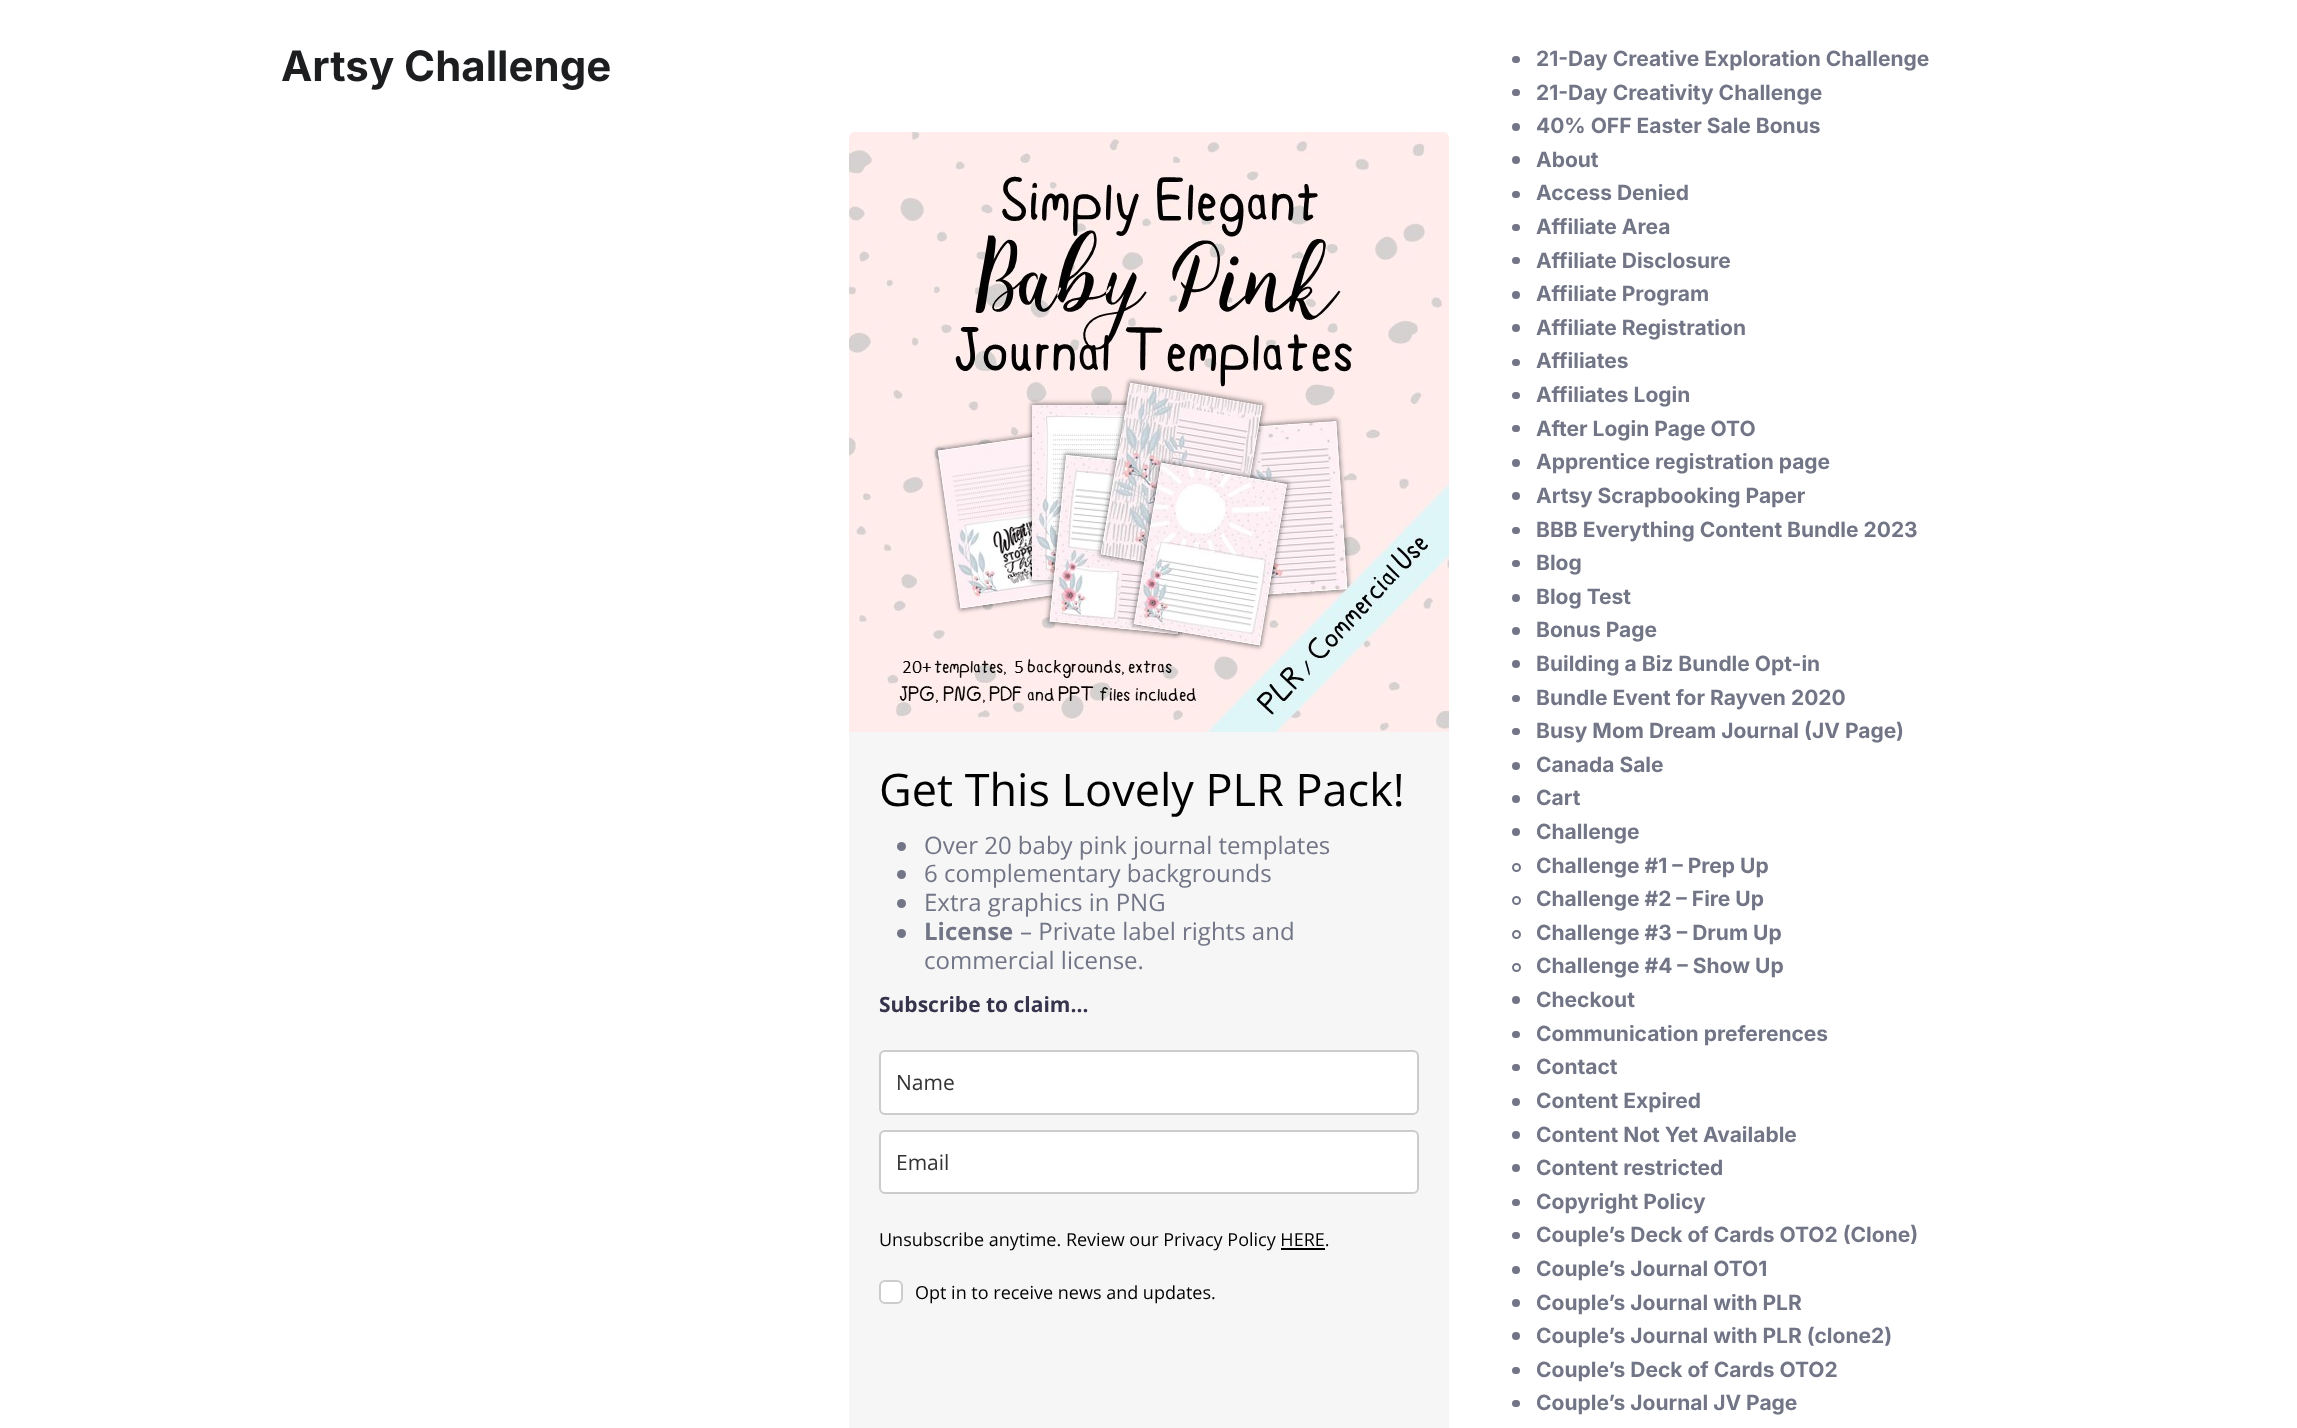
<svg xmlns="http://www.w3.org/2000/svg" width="2297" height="1428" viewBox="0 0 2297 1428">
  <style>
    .t1 { font: bold 42px Inter; fill: #1d1e20; }
    .t2 { font: bold 21px Inter; fill: #727586; }
    .t3 { font: 45px Open Sans; fill: #000; }
    .t4 { font: 24px Open Sans; fill: #727586; }
    .t5 { font: bold 24px Open Sans; fill: #727586; }
    .t6 { font: bold 21px Open Sans; fill: #36344d; }
    .t7 { font: 21px Open Sans; fill: #333; }
    .t8 { font: 18px Open Sans; fill: #000; }
  </style>
  <rect width="100%" height="100%" fill="#fff"/>
  <text x="281" y="81" class="t1">Artsy Challenge</text>
  <rect x="1512" y="56" width="8" height="7" rx="3.5" fill="#727586"/>
  <text x="1536" y="66" class="t2">21-Day Creative Exploration Challenge</text>
  <rect x="1512" y="89" width="8" height="7" rx="3.5" fill="#727586"/>
  <text x="1536" y="100" class="t2">21-Day Creativity Challenge</text>
  <circle cx="1516" cy="127" r="4" fill="#727586"/>
  <text x="1536" y="133" class="t2">40% OFF Easter Sale Bonus</text>
  <circle cx="1516" cy="160" r="4" fill="#727586"/>
  <text x="1536" y="167" class="t2">About</text>
  <rect x="1512" y="191" width="8" height="7" rx="3.5" fill="#727586"/>
  <text x="1536" y="200" class="t2">Access Denied</text>
  <rect x="1512" y="224" width="8" height="7" rx="3.5" fill="#727586"/>
  <text x="1536" y="234" class="t2">Affiliate Area</text>
  <rect x="1512" y="257" width="8" height="7" rx="3.5" fill="#727586"/>
  <text x="1536" y="268" class="t2">Affiliate Disclosure</text>
  <circle cx="1516" cy="295" r="4" fill="#727586"/>
  <text x="1536" y="301" class="t2">Affiliate Program</text>
  <circle cx="1516" cy="328" r="4" fill="#727586"/>
  <text x="1536" y="335" class="t2">Affiliate Registration</text>
  <rect x="1512" y="359" width="8" height="7" rx="3.5" fill="#727586"/>
  <text x="1536" y="368" class="t2">Affiliates</text>
  <rect x="1512" y="392" width="8" height="7" rx="3.5" fill="#727586"/>
  <text x="1536" y="402" class="t2">Affiliates Login</text>
  <rect x="1512" y="425" width="8" height="7" rx="3.5" fill="#727586"/>
  <text x="1536" y="436" class="t2">After Login Page OTO</text>
  <circle cx="1516" cy="463" r="4" fill="#727586"/>
  <text x="1536" y="469" class="t2">Apprentice registration page</text>
  <circle cx="1516" cy="496" r="4" fill="#727586"/>
  <text x="1536" y="503" class="t2">Artsy Scrapbooking Paper</text>
  <rect x="1512" y="527" width="8" height="7" rx="3.5" fill="#727586"/>
  <text x="1536" y="537" class="t2">BBB Everything Content Bundle 2023</text>
  <rect x="1512" y="560" width="8" height="7" rx="3.5" fill="#727586"/>
  <text x="1536" y="570" class="t2">Blog</text>
  <circle cx="1516" cy="598" r="4" fill="#727586"/>
  <text x="1536" y="604" class="t2">Blog Test</text>
  <circle cx="1516" cy="631" r="4" fill="#727586"/>
  <text x="1536" y="637" class="t2">Bonus Page</text>
  <circle cx="1516" cy="664" r="4" fill="#727586"/>
  <text x="1536" y="671" class="t2">Building a Biz Bundle Opt-in</text>
  <rect x="1512" y="695" width="8" height="7" rx="3.5" fill="#727586"/>
  <text x="1536" y="705" class="t2">Bundle Event for Rayven 2020</text>
  <rect x="1512" y="728" width="8" height="7" rx="3.5" fill="#727586"/>
  <text x="1536" y="738" class="t2">Busy Mom Dream Journal (JV Page)</text>
  <circle cx="1516" cy="766" r="4" fill="#727586"/>
  <text x="1536" y="772" class="t2">Canada Sale</text>
  <circle cx="1516" cy="799" r="4" fill="#727586"/>
  <text x="1536" y="805" class="t2">Cart</text>
  <circle cx="1516" cy="832" r="4" fill="#727586"/>
  <text x="1536" y="839" class="t2">Challenge</text>
  <circle cx="1516.5" cy="867.5" r="3.5" fill="none" stroke="#727586" stroke-width="2"/>
  <text x="1536" y="873" class="t2">Challenge #1 – Prep Up</text>
  <circle cx="1516.5" cy="900.5" r="3.5" fill="none" stroke="#727586" stroke-width="2"/>
  <text x="1536" y="906" class="t2">Challenge #2 – Fire Up</text>
  <circle cx="1516.5" cy="934.5" r="3.5" fill="none" stroke="#727586" stroke-width="2"/>
  <text x="1536" y="940" class="t2">Challenge #3 – Drum Up</text>
  <circle cx="1516.5" cy="967.5" r="3.5" fill="none" stroke="#727586" stroke-width="2"/>
  <text x="1536" y="973" class="t2">Challenge #4 – Show Up</text>
  <circle cx="1516" cy="1000" r="4" fill="#727586"/>
  <text x="1536" y="1007" class="t2">Checkout</text>
  <rect x="1512" y="1031" width="8" height="7" rx="3.5" fill="#727586"/>
  <text x="1536" y="1041" class="t2">Communication preferences</text>
  <rect x="1512" y="1064" width="8" height="7" rx="3.5" fill="#727586"/>
  <text x="1536" y="1074" class="t2">Contact</text>
  <circle cx="1516" cy="1102" r="4" fill="#727586"/>
  <text x="1536" y="1108" class="t2">Content Expired</text>
  <circle cx="1516" cy="1135" r="4" fill="#727586"/>
  <text x="1536" y="1142" class="t2">Content Not Yet Available</text>
  <circle cx="1516" cy="1168" r="4" fill="#727586"/>
  <text x="1536" y="1175" class="t2">Content restricted</text>
  <rect x="1512" y="1199" width="8" height="7" rx="3.5" fill="#727586"/>
  <text x="1536" y="1209" class="t2">Copyright Policy</text>
  <rect x="1512" y="1232" width="8" height="7" rx="3.5" fill="#727586"/>
  <text x="1536" y="1242" class="t2">Couple’s Deck of Cards OTO2 (Clone)</text>
  <circle cx="1516" cy="1270" r="4" fill="#727586"/>
  <text x="1536" y="1276" class="t2">Couple’s Journal OTO1</text>
  <circle cx="1516" cy="1303" r="4" fill="#727586"/>
  <text x="1536" y="1310" class="t2">Couple’s Journal with PLR</text>
  <circle cx="1516" cy="1336" r="4" fill="#727586"/>
  <text x="1536" y="1343" class="t2">Couple’s Journal with PLR (clone2)</text>
  <rect x="1512" y="1367" width="8" height="7" rx="3.5" fill="#727586"/>
  <text x="1536" y="1377" class="t2">Couple’s Deck of Cards OTO2</text>
  <rect x="1512" y="1400" width="8" height="7" rx="3.5" fill="#727586"/>
  <text x="1536" y="1410" class="t2">Couple’s Journal JV Page</text>
  <rect x="849" y="132" width="600" height="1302" rx="6" fill="#f6f6f6"/>
  <image x="849" y="132" width="600" height="600" href="images/1.png"/>
  <text x="879" y="806" class="t3">Get This Lovely PLR Pack!</text>
  <circle cx="901.5" cy="846.5" r="4.5" fill="#727586"/>
  <text x="924" y="854" class="t4">Over 20 baby pink journal templates</text>
  <circle cx="901.5" cy="874.5" r="4.5" fill="#727586"/>
  <text x="924" y="882" class="t4">6 complementary backgrounds</text>
  <circle cx="901.5" cy="903.5" r="4.5" fill="#727586"/>
  <text x="924" y="911" class="t4">Extra graphics in PNG</text>
  <circle cx="901.5" cy="933.5" r="4.5" fill="#727586"/>
  <text x="924" y="940" class="t5">License</text>
  <text x="1020" y="940" class="t4">– Private label rights and</text>
  <text x="924" y="969" class="t4">commercial license.</text>
  <text x="879" y="1012" class="t6">Subscribe to claim…</text>
  <rect x="880" y="1051" width="538" height="63" rx="5" fill="#fff" stroke="#ccc" stroke-width="2"/>
  <text x="896" y="1090" class="t7">Name</text>
  <rect x="880" y="1131" width="538" height="62" rx="5" fill="#fff" stroke="#ccc" stroke-width="2"/>
  <text x="896" y="1170" class="t7">Email</text>
  <text x="879" y="1246" class="t8">Unsubscribe anytime. Review our Privacy Policy HERE.</text>
  <rect x="1281" y="1248" width="44" height="2" fill="#000"/>
  <rect x="880" y="1281" width="22" height="22" rx="5" fill="#fff" stroke="#ccc" stroke-width="2"/>
  <text x="915" y="1299" class="t8">Opt in to receive news and updates.</text>
</svg>
